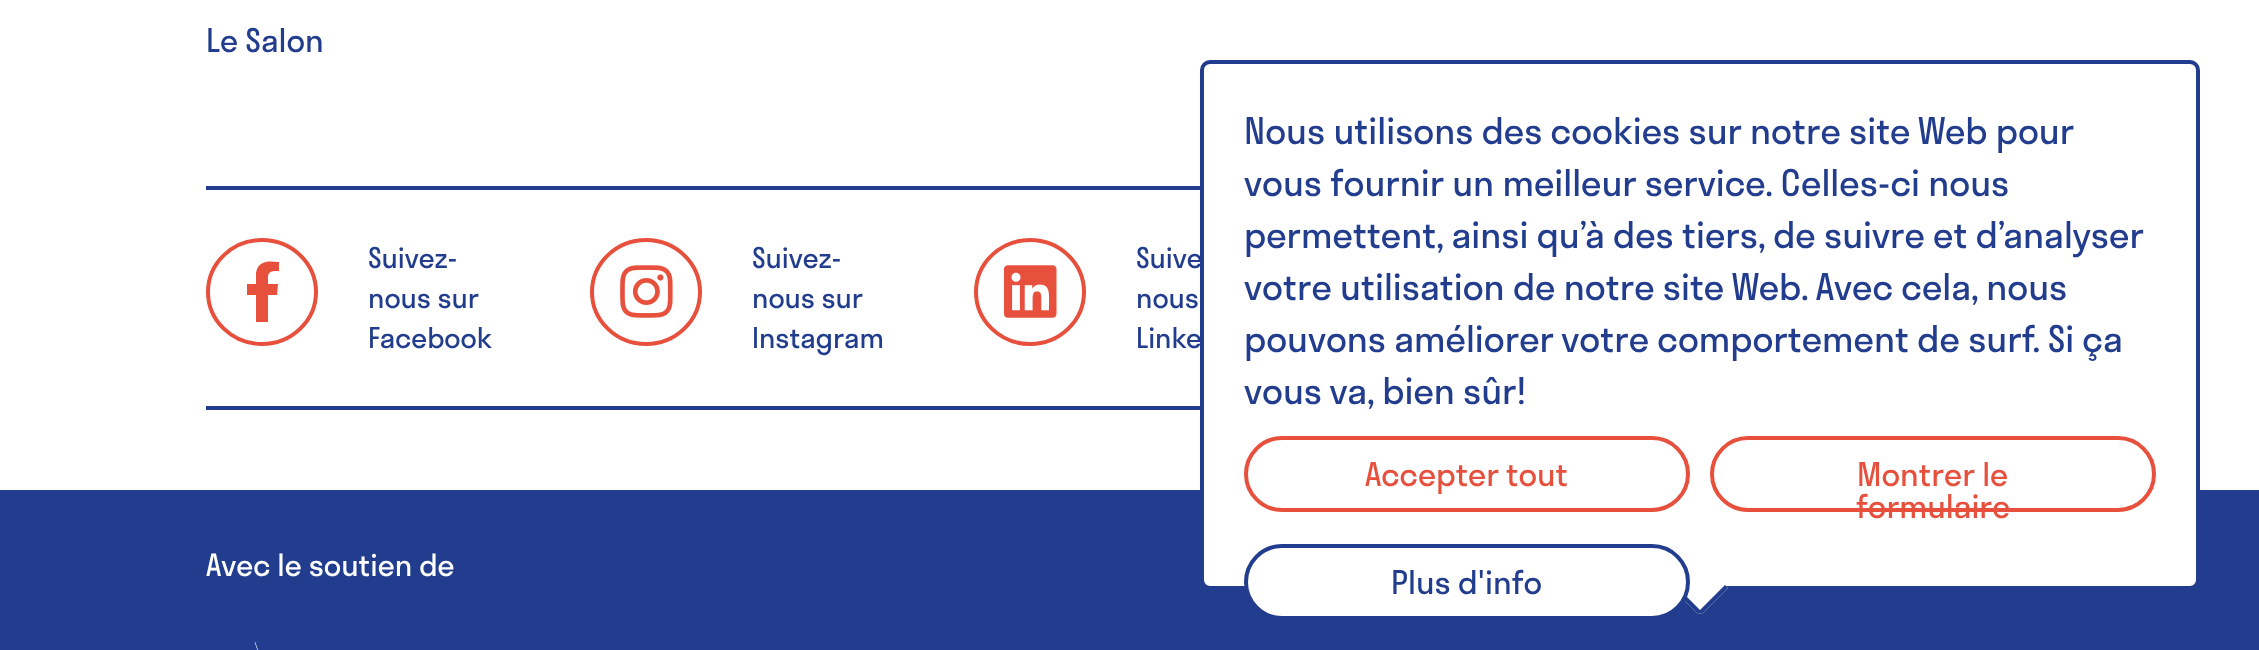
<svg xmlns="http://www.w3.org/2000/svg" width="2259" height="650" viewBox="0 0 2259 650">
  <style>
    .t1 { font: 32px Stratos; fill: #223d8d; }
    .t2 { font: 28px Stratos; fill: #223d8d; }
    .t3 { font: 36px Stratos; fill: #223d8d; }
    .t4 { font: 32px Stratos; fill: #e7503c; }
    .t5 { font: 30px Stratos; fill: #fff; }
  </style>
  <rect width="100%" height="100%" fill="#fff"/>
  <text x="206" y="52" class="t1">Le Salon</text>
  <rect x="206" y="186" width="994" height="4" fill="#223d8d"/>
  <path d="M262 240C292 240 316 263.5 316 292C316 320.5 292 344 262 344C232 344 208 320.5 208 292C208 263.5 232 240 262 240Z" fill="none" stroke="#e7503c" stroke-width="4"/>
  <path d="M277 295H268V322H256V295H247V284H256V273C258 260 269 261 279 262V271C267 271 268 273 268 284H278Z" fill="#e7503c"/>
  <text x="368" y="268" class="t2">Suivez-</text>
  <text x="368" y="308" class="t2">nous sur</text>
  <text x="368" y="348" class="t2">Facebook</text>
  <path d="M646 240C676 240 700 263.5 700 292C700 320.5 676 344 646 344C616 344 592 320.5 592 292C592 263.5 616 240 646 240Z" fill="none" stroke="#e7503c" stroke-width="4"/>
  <image x="620" y="265" width="53" height="53" href="images/1.png"/>
  <text x="752" y="268" class="t2">Suivez-</text>
  <text x="752" y="308" class="t2">nous sur</text>
  <text x="752" y="348" class="t2">Instagram</text>
  <path d="M1030 240C1060 240 1084 263.5 1084 292C1084 320.5 1060 344 1030 344C1000 344 976 320.5 976 292C976 263.5 1000 240 1030 240Z" fill="none" stroke="#e7503c" stroke-width="4"/>
  <image x="1004" y="265" width="53" height="53" href="images/2.png"/>
  <text x="1136" y="268" class="t2">Suive</text>
  <text x="1136" y="308" class="t2">nous</text>
  <text x="1136" y="348" class="t2">Linke</text>
  <rect x="0" y="490" width="2259" height="160" fill="#223d8d"/>
  <rect x="1202" y="62" width="996" height="526" rx="8" fill="#fff" stroke="#223d8d" stroke-width="4"/>
  <text x="1244" y="144" class="t3">Nous utilisons des cookies sur notre site Web pour</text>
  <text x="1244" y="196" class="t3">vous fournir un meilleur service. Celles-ci nous</text>
  <text x="1244" y="248" class="t3">permettent, ainsi qu’à des tiers, de suivre et d’analyser</text>
  <text x="1244" y="300" class="t3">votre utilisation de notre site Web. Avec cela, nous</text>
  <text x="1244" y="352" class="t3">pouvons améliorer votre comportement de surf. Si ça</text>
  <text x="1244" y="404" class="t3">vous va, bien sûr!</text>
  <rect x="1246" y="438" width="442" height="72" rx="36" fill="none" stroke="#e7503c" stroke-width="4"/>
  <text x="1365" y="486" class="t4">Accepter tout</text>
  <rect x="1712" y="438" width="442" height="72" rx="36" fill="none" stroke="#e7503c" stroke-width="4"/>
  <text x="1857" y="486" class="t4">Montrer le</text>
  <text x="1856" y="518" class="t4">formulaire</text>
  <path d="M1700 560L1728 588L1704 612C1702 614 1698 614 1696 612L1672 588Z" fill="#fff"/>
  <path d="M1700 560L1728 588L1704 612C1702 614 1698 614 1696 612L1672 588ZM1700 560L1725 585L1701 609C1701 610 1699 610 1699 609L1675 585Z" fill="#223d8d" fill-rule="evenodd"/>
  <rect x="1246" y="546" width="442" height="72" rx="36" fill="#fff" stroke="#223d8d" stroke-width="4"/>
  <text x="1391" y="594" class="t1">Plus d'info</text>
  <rect x="206" y="406" width="994" height="4" fill="#223d8d"/>
  <text x="206" y="576" class="t5">Avec le soutien de</text>
  <image x="254" y="642" width="4" height="8" href="images/3.png"/>
</svg>
